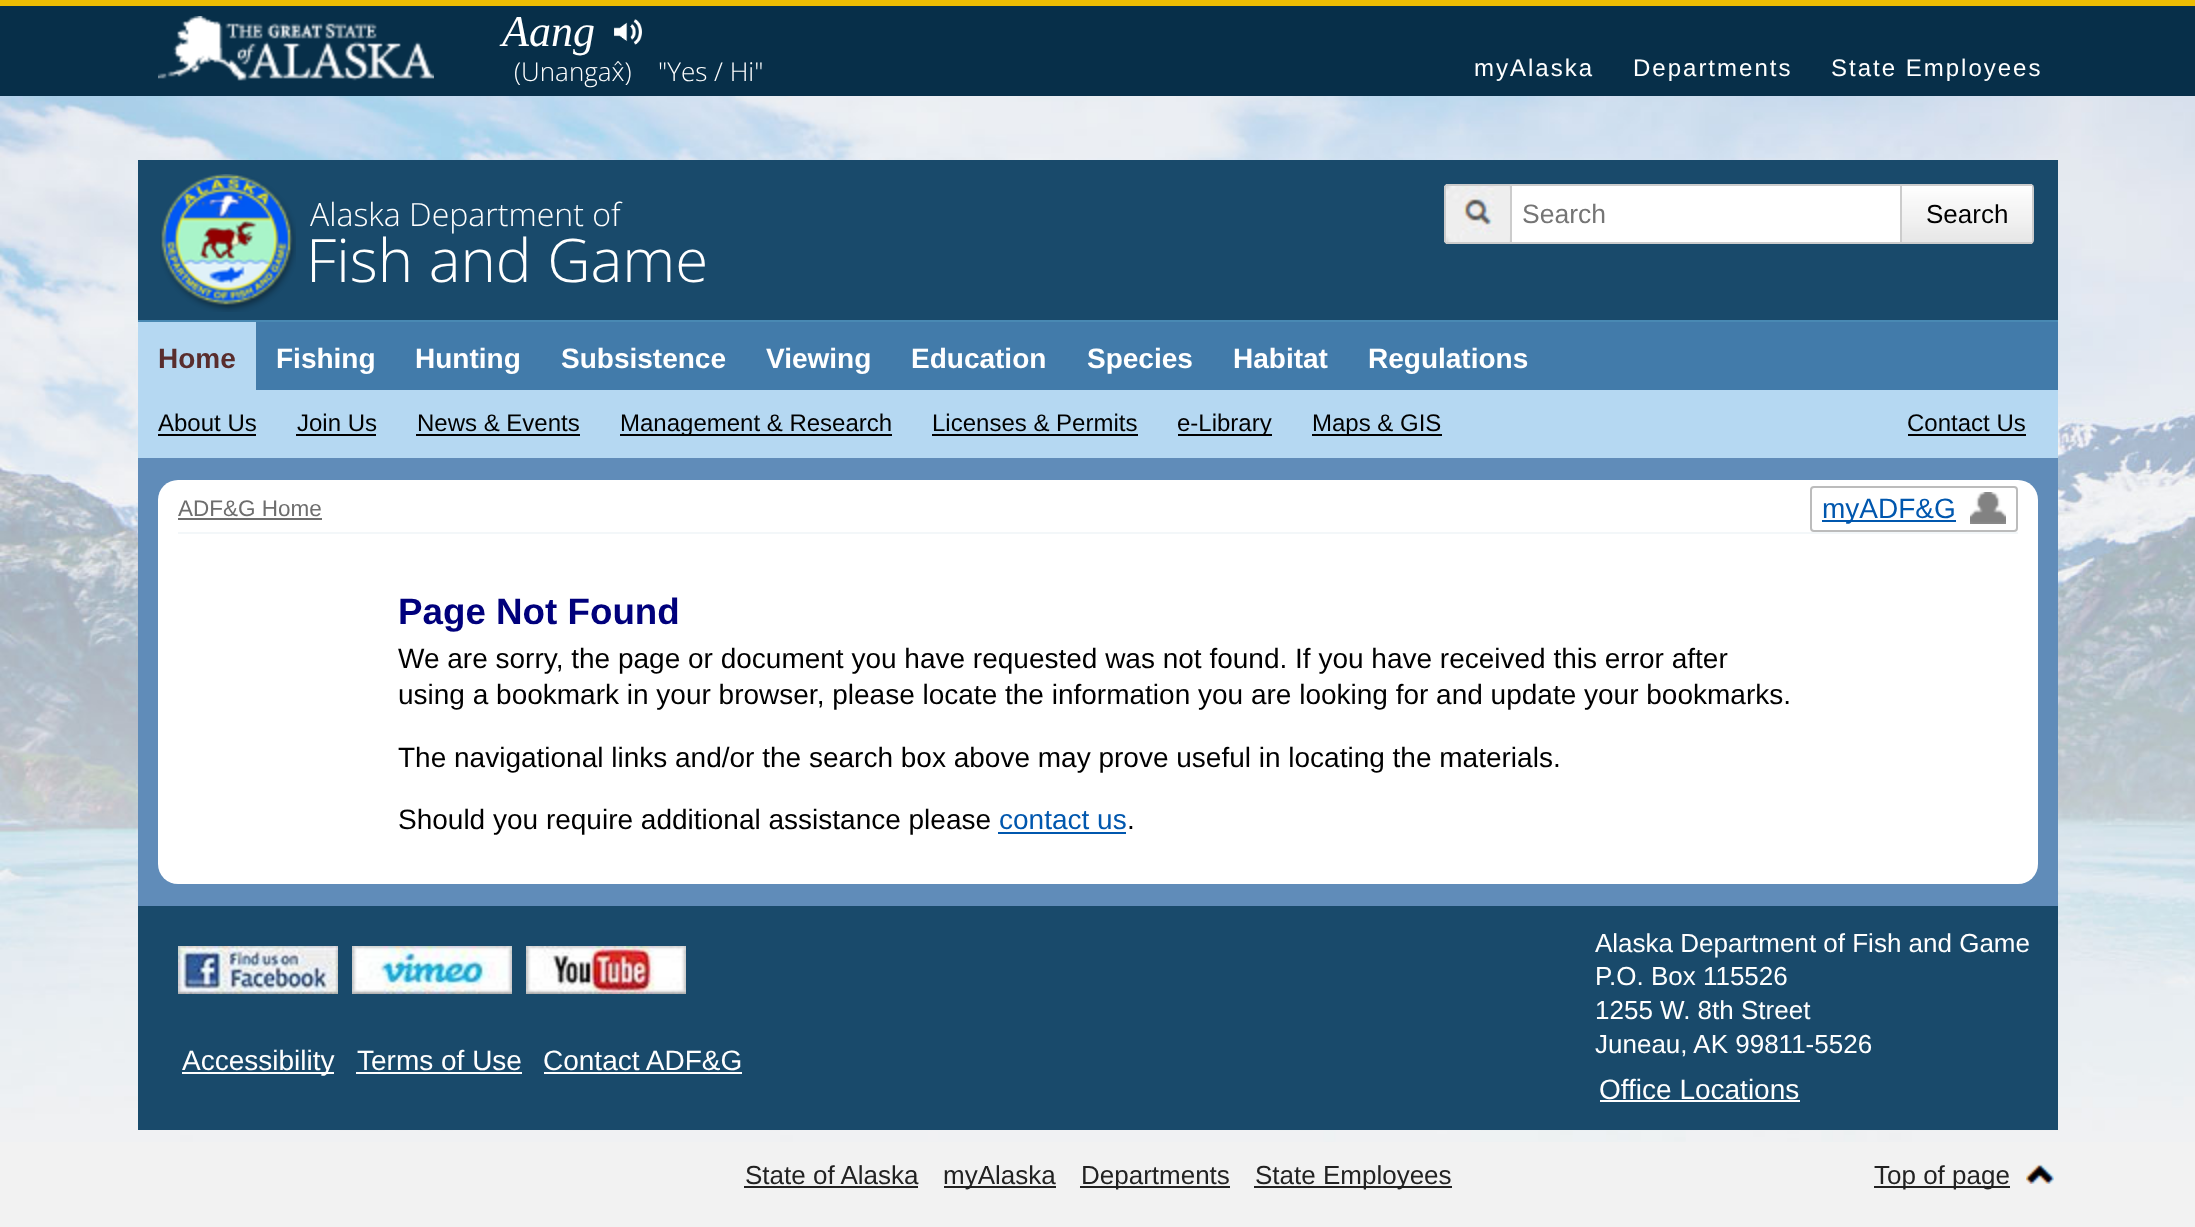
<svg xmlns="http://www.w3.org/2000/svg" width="2195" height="1227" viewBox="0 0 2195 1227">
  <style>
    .t1 { font: italic 44px Liberation Serif; fill: #fff; }
    .t2 { font: 300 26px Open Sans; fill: #fff; }
    .t3 { font: 24px Liberation Sans; letter-spacing: 2px; fill: #fff; }
    .t4 { font: 300 32px Open Sans; fill: #fff; }
    .t5 { font: 300 60px Open Sans; fill: #fff; }
    .t6 { font: 26.5px Liberation Sans; fill: #757575; }
    .t7 { font: 26px Liberation Sans; fill: #000; }
    .t8 { font: bold 28px Liberation Sans; fill: #fff; }
    .t9 { font: bold 28px Liberation Sans; fill: #592d2d; }
    .t10 { font: 24px Liberation Sans; fill: #000; }
    .t11 { font: 22.5px Liberation Sans; fill: #6e6e6e; }
    .t12 { font: 28px Liberation Sans; fill: #0057ae; }
    .t13 { font: bold 36.75px Liberation Sans; fill: #00007c; }
    .t14 { font: 28px Liberation Sans; fill: #000; }
    .t15 { font: 28px Liberation Sans; fill: #fff; }
    .t16 { font: 26px Liberation Sans; fill: #fff; }
    .t17 { font: 26px Liberation Sans; fill: #222; }
  </style>
  <rect width="100%" height="100%" fill="#f2f2f2"/>
  <image x="0" y="96" width="2195" height="1046" href="images/1.png"/>
  <rect x="0" y="6" width="2195" height="90" fill="#072f49"/>
  <rect x="0" y="0" width="2195" height="6" fill="#edbd03"/>
  <text x="502" y="46" class="t1">Aang</text>
  <image x="614" y="19" width="28" height="26" href="images/2.png"/>
  <text x="514" y="81" class="t2">(Unangax̂)</text>
  <text x="658" y="81" class="t2">"Yes / Hi"</text>
  <image x="158" y="16" width="276" height="65" href="images/3.png"/>
  <text x="1474" y="76" class="t3">myAlaska</text>
  <text x="1633" y="76" class="t3">Departments</text>
  <text x="1831" y="76" class="t3">State Employees</text>
  <rect x="138" y="160" width="1920" height="160" fill="#194a6b"/>
  <image x="160" y="174" width="136" height="138" href="images/4.png"/>
  <text x="310" y="226" class="t4">Alaska Department of</text>
  <text x="306" y="282" class="t5">Fish and Game</text>
  <rect x="1444" y="184" width="590" height="60" rx="4" fill="#ccc"/>
  <rect x="1446" y="184" width="586" height="1" fill="#ccc"/>
  <rect x="1446" y="243" width="586" height="1" fill="#ccc"/>
  <rect x="1444" y="186" width="1" height="56" fill="#ccc"/>
  <image x="1446" y="186" width="64" height="56" href="images/5.png"/>
  <rect x="1512" y="186" width="388" height="56" fill="#fff"/>
  <text x="1522" y="223" class="t6">Search</text>
  <image x="1902" y="186" width="130" height="56" href="images/6.png"/>
  <text x="1926" y="223" class="t7">Search</text>
  <rect x="256" y="322" width="1802" height="68" fill="#427baa"/>
  <rect x="138" y="320" width="1920" height="2" fill="#4989b3"/>
  <text x="276" y="368" class="t8">Fishing</text>
  <text x="415" y="368" class="t8">Hunting</text>
  <text x="561" y="368" class="t8">Subsistence</text>
  <text x="766" y="368" class="t8">Viewing</text>
  <text x="911" y="368" class="t8">Education</text>
  <text x="1087" y="368" class="t8">Species</text>
  <text x="1233" y="368" class="t8">Habitat</text>
  <text x="1368" y="368" class="t8">Regulations</text>
  <rect x="138" y="322" width="118" height="68" fill="#b5d8f2"/>
  <text x="158" y="368" class="t9">Home</text>
  <rect x="138" y="390" width="1920" height="68" fill="#b5d8f2"/>
  <text x="158" y="431" class="t10">About Us</text>
  <rect x="158" y="434" width="98" height="2" fill="#000"/>
  <text x="297" y="431" class="t10">Join Us</text>
  <rect x="296" y="434" width="80" height="2" fill="#000"/>
  <text x="417" y="431" class="t10">News &amp; Events</text>
  <rect x="416" y="434" width="164" height="2" fill="#000"/>
  <rect x="620" y="434" width="272" height="2" fill="#000"/>
  <text x="620" y="431" class="t10">Management &amp; Research</text>
  <text x="932" y="431" class="t10">Licenses &amp; Permits</text>
  <rect x="932" y="434" width="206" height="2" fill="#000"/>
  <rect x="1178" y="434" width="94" height="2" fill="#000"/>
  <text x="1177" y="431" class="t10">e-Library</text>
  <rect x="1312" y="434" width="130" height="2" fill="#000"/>
  <text x="1312" y="431" class="t10">Maps &amp; GIS</text>
  <text x="1907" y="431" class="t10">Contact Us</text>
  <rect x="1908" y="434" width="118" height="2" fill="#000"/>
  <rect x="138" y="458" width="1920" height="448" fill="#608cb9"/>
  <rect x="158" y="480" width="1880" height="404" rx="20" fill="#fff"/>
  <rect x="178" y="532" width="1840" height="2" fill="#f3f7f9"/>
  <text x="178" y="516" class="t11">ADF&amp;G Home</text>
  <rect x="178" y="518" width="144" height="2" fill="#6e6e6e"/>
  <rect x="1811" y="487" width="206" height="44" rx="3" fill="none" stroke="#bcbcbc" stroke-width="2"/>
  <rect x="1822" y="520" width="134" height="2" fill="#0057ae"/>
  <text x="1822" y="518" class="t12">myADF&amp;G</text>
  <image x="1970" y="492" width="36" height="32" href="images/7.png"/>
  <text x="398" y="624" class="t13">Page Not Found</text>
  <text x="398" y="668" class="t14">We are sorry, the page or document you have requested was not found. If you have received this error after</text>
  <text x="398" y="704" class="t14">using a bookmark in your browser, please locate the information you are looking for and update your bookmarks.</text>
  <text x="398" y="767" class="t14">The navigational links and/or the search box above may prove useful in locating the materials.</text>
  <text x="398" y="829" class="t14">Should you require additional assistance please</text>
  <text x="999" y="829" class="t12">contact us</text>
  <rect x="998" y="832" width="128" height="2" fill="#0057ae"/>
  <text x="1127" y="829" class="t14">.</text>
  <rect x="138" y="906" width="1920" height="224" fill="#194a6b"/>
  <image x="178" y="946" width="160" height="48" href="images/8.png"/>
  <image x="352" y="946" width="160" height="48" href="images/9.png"/>
  <image x="526" y="946" width="160" height="48" href="images/10.png"/>
  <rect x="182" y="1072" width="152" height="2" fill="#fff"/>
  <text x="182" y="1070" class="t15">Accessibility</text>
  <text x="357" y="1070" class="t15">Terms of Use</text>
  <rect x="356" y="1072" width="166" height="2" fill="#fff"/>
  <text x="543" y="1070" class="t15">Contact ADF&amp;G</text>
  <rect x="544" y="1072" width="198" height="2" fill="#fff"/>
  <text x="1595" y="952" class="t16">Alaska Department of Fish and Game</text>
  <text x="1595" y="985" class="t16">P.O. Box 115526</text>
  <text x="1595" y="1019" class="t16">1255 W. 8th Street</text>
  <text x="1595" y="1053" class="t16">Juneau, AK 99811-5526</text>
  <text x="1599" y="1099" class="t15">Office Locations</text>
  <rect x="1600" y="1100" width="200" height="2" fill="#fff"/>
  <text x="745" y="1184" class="t17">State of Alaska</text>
  <rect x="744" y="1186" width="174" height="2" fill="#222"/>
  <rect x="944" y="1186" width="112" height="2" fill="#222"/>
  <text x="943" y="1184" class="t17">myAlaska</text>
  <rect x="1080" y="1186" width="150" height="2" fill="#222"/>
  <text x="1081" y="1184" class="t17">Departments</text>
  <rect x="1254" y="1186" width="198" height="2" fill="#222"/>
  <text x="1255" y="1184" class="t17">State Employees</text>
  <rect x="1874" y="1186" width="136" height="2" fill="#222"/>
  <text x="1874" y="1184" class="t17">Top of page</text>
  <image x="2026" y="1164" width="28" height="20" href="images/11.png"/>
</svg>
